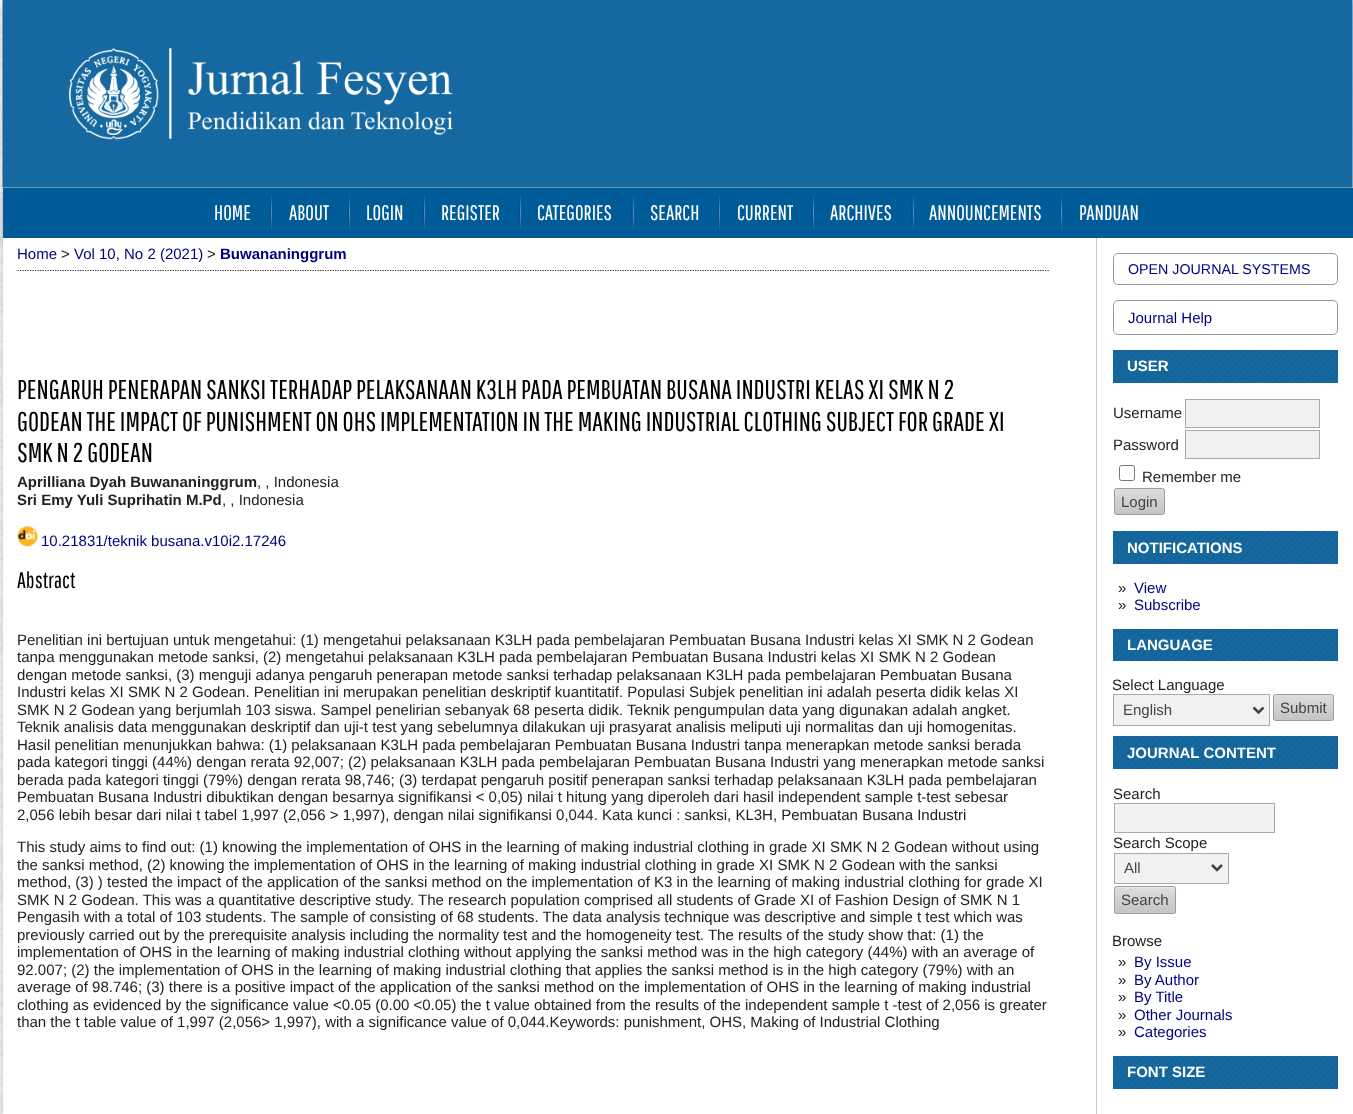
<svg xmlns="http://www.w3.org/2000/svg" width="1353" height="1114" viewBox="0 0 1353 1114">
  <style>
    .t1 { font: 21px Pathway Gothic One; fill: #fff; }
    .t2 { font: 15px Liberation Sans; fill: #000080; }
    .t3 { font: 15px Liberation Sans; fill: #222; }
    .t4 { font: bold 15px Liberation Sans; fill: #000080; }
    .t5 { font: 27px Pathway Gothic One; fill: #000; }
    .t6 { font: bold 15px Liberation Sans; fill: #222; }
    .t7 { font: 22.5px Pathway Gothic One; fill: #000; }
    .t8 { font: 14.25px Liberation Sans; fill: #000080; }
    .t9 { font: bold 15px Liberation Sans; fill: #fff; }
    .t10 { font: 15px Liberation Sans; fill: #444; }
  </style>
  <defs>
    <linearGradient id="g1" gradientUnits="userSpaceOnUse" x1="271" y1="194" x2="271" y2="231"><stop offset="0" stop-color="#005c99"/><stop offset="0.5" stop-color="#004e82"/><stop offset="1" stop-color="#005c99"/></linearGradient>
    <linearGradient id="g2" gradientUnits="userSpaceOnUse" x1="272" y1="194" x2="272" y2="231"><stop offset="0" stop-color="#005c99"/><stop offset="0.5" stop-color="#5995bd"/><stop offset="1" stop-color="#005c99"/></linearGradient>
    <linearGradient id="g3" gradientUnits="userSpaceOnUse" x1="348" y1="194" x2="348" y2="231"><stop offset="0" stop-color="#005c99"/><stop offset="0.5" stop-color="#004e82"/><stop offset="1" stop-color="#005c99"/></linearGradient>
    <linearGradient id="g4" gradientUnits="userSpaceOnUse" x1="349" y1="194" x2="349" y2="231"><stop offset="0" stop-color="#005c99"/><stop offset="0.5" stop-color="#5995bd"/><stop offset="1" stop-color="#005c99"/></linearGradient>
    <linearGradient id="g5" gradientUnits="userSpaceOnUse" x1="423" y1="194" x2="423" y2="231"><stop offset="0" stop-color="#005c99"/><stop offset="0.5" stop-color="#004e82"/><stop offset="1" stop-color="#005c99"/></linearGradient>
    <linearGradient id="g6" gradientUnits="userSpaceOnUse" x1="424" y1="194" x2="424" y2="231"><stop offset="0" stop-color="#005c99"/><stop offset="0.5" stop-color="#5995bd"/><stop offset="1" stop-color="#005c99"/></linearGradient>
    <linearGradient id="g7" gradientUnits="userSpaceOnUse" x1="519" y1="194" x2="519" y2="231"><stop offset="0" stop-color="#005c99"/><stop offset="0.5" stop-color="#004e82"/><stop offset="1" stop-color="#005c99"/></linearGradient>
    <linearGradient id="g8" gradientUnits="userSpaceOnUse" x1="521" y1="194" x2="521" y2="231"><stop offset="0" stop-color="#005c99"/><stop offset="0.5" stop-color="#5995bd"/><stop offset="1" stop-color="#005c99"/></linearGradient>
    <linearGradient id="g9" gradientUnits="userSpaceOnUse" x1="632" y1="194" x2="632" y2="231"><stop offset="0" stop-color="#005c99"/><stop offset="0.5" stop-color="#004e82"/><stop offset="1" stop-color="#005c99"/></linearGradient>
    <linearGradient id="g10" gradientUnits="userSpaceOnUse" x1="633" y1="194" x2="633" y2="231"><stop offset="0" stop-color="#005c99"/><stop offset="0.5" stop-color="#5995bd"/><stop offset="1" stop-color="#005c99"/></linearGradient>
    <linearGradient id="g11" gradientUnits="userSpaceOnUse" x1="718" y1="194" x2="718" y2="231"><stop offset="0" stop-color="#005c99"/><stop offset="0.5" stop-color="#004e82"/><stop offset="1" stop-color="#005c99"/></linearGradient>
    <linearGradient id="g12" gradientUnits="userSpaceOnUse" x1="719" y1="194" x2="719" y2="231"><stop offset="0" stop-color="#005c99"/><stop offset="0.5" stop-color="#5995bd"/><stop offset="1" stop-color="#005c99"/></linearGradient>
    <linearGradient id="g13" gradientUnits="userSpaceOnUse" x1="812" y1="194" x2="812" y2="231"><stop offset="0" stop-color="#005c99"/><stop offset="0.5" stop-color="#004e82"/><stop offset="1" stop-color="#005c99"/></linearGradient>
    <linearGradient id="g14" gradientUnits="userSpaceOnUse" x1="813" y1="194" x2="813" y2="231"><stop offset="0" stop-color="#005c99"/><stop offset="0.5" stop-color="#5995bd"/><stop offset="1" stop-color="#005c99"/></linearGradient>
    <linearGradient id="g15" gradientUnits="userSpaceOnUse" x1="912" y1="194" x2="912" y2="231"><stop offset="0" stop-color="#005c99"/><stop offset="0.5" stop-color="#004e82"/><stop offset="1" stop-color="#005c99"/></linearGradient>
    <linearGradient id="g16" gradientUnits="userSpaceOnUse" x1="913" y1="194" x2="913" y2="231"><stop offset="0" stop-color="#005c99"/><stop offset="0.5" stop-color="#5995bd"/><stop offset="1" stop-color="#005c99"/></linearGradient>
    <linearGradient id="g17" gradientUnits="userSpaceOnUse" x1="1061" y1="194" x2="1061" y2="231"><stop offset="0" stop-color="#005c99"/><stop offset="0.5" stop-color="#004e82"/><stop offset="1" stop-color="#005c99"/></linearGradient>
    <linearGradient id="g18" gradientUnits="userSpaceOnUse" x1="1062" y1="194" x2="1062" y2="231"><stop offset="0" stop-color="#005c99"/><stop offset="0.5" stop-color="#5995bd"/><stop offset="1" stop-color="#005c99"/></linearGradient>
    <clipPath id="clip1"><rect x="1114" y="488" width="51" height="27" rx="2.5"/></clipPath>
    <linearGradient id="g19" gradientUnits="userSpaceOnUse" x1="1139" y1="489" x2="1139" y2="514"><stop offset="0" stop-color="#ddd"/><stop offset="1" stop-color="#c4c4c4"/></linearGradient>
    <clipPath id="clip2"><rect x="1273" y="694" width="61" height="27" rx="2.5"/></clipPath>
    <linearGradient id="g20" gradientUnits="userSpaceOnUse" x1="1303" y1="695" x2="1303" y2="720"><stop offset="0" stop-color="#ddd"/><stop offset="1" stop-color="#c4c4c4"/></linearGradient>
    <linearGradient id="g21" gradientUnits="userSpaceOnUse" x1="1145" y1="888" x2="1145" y2="913"><stop offset="0" stop-color="#ddd"/><stop offset="1" stop-color="#c4c4c4"/></linearGradient>
  </defs>
  <rect width="100%" height="100%" fill="#fff"/>
  <image x="0" y="0" width="1353" height="1114" href="images/1.png"/>
  <image x="553" y="187" width="249" height="1" href="images/2.png"/>
  <rect x="3" y="6" width="1350" height="238" fill="#bbb" filter="blur(4px)"/>
  <image x="2" y="0" width="1351" height="188" href="images/3.png"/>
  <rect x="3" y="194" width="1350" height="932" fill="#bbb" filter="blur(4px)"/>
  <rect x="3" y="238" width="1350" height="876" fill="#fff"/>
  <rect x="3" y="188" width="1350" height="50" fill="#005c99"/>
  <text x="214" y="220" class="t1">HOME</text>
  <rect x="270" y="194" width="1" height="37" fill="url(#g1)"/>
  <rect x="271" y="194" width="1" height="37" fill="url(#g2)"/>
  <text x="289" y="220" class="t1">ABOUT</text>
  <rect x="348" y="194" width="1" height="37" fill="url(#g3)"/>
  <rect x="349" y="194" width="1" height="37" fill="url(#g4)"/>
  <text x="366" y="220" class="t1">LOGIN</text>
  <rect x="423" y="194" width="1" height="37" fill="url(#g5)"/>
  <rect x="424" y="194" width="1" height="37" fill="url(#g6)"/>
  <text x="441" y="220" class="t1">REGISTER</text>
  <rect x="519" y="194" width="1" height="37" fill="url(#g7)"/>
  <rect x="520" y="194" width="1" height="37" fill="url(#g8)"/>
  <text x="537" y="220" class="t1">CATEGORIES</text>
  <rect x="631" y="194" width="1" height="37" fill="url(#g9)"/>
  <rect x="633" y="194" width="1" height="37" fill="url(#g10)"/>
  <text x="650" y="220" class="t1">SEARCH</text>
  <rect x="718" y="194" width="1" height="37" fill="url(#g11)"/>
  <rect x="719" y="194" width="1" height="37" fill="url(#g12)"/>
  <text x="737" y="220" class="t1">CURRENT</text>
  <rect x="811" y="194" width="1" height="37" fill="url(#g13)"/>
  <rect x="813" y="194" width="1" height="37" fill="url(#g14)"/>
  <text x="830" y="220" class="t1">ARCHIVES</text>
  <rect x="911" y="194" width="1" height="37" fill="url(#g15)"/>
  <rect x="913" y="194" width="1" height="37" fill="url(#g16)"/>
  <text x="929" y="220" class="t1">ANNOUNCEMENTS</text>
  <rect x="1060" y="194" width="1" height="37" fill="url(#g17)"/>
  <rect x="1061" y="194" width="1" height="37" fill="url(#g18)"/>
  <text x="1079" y="220" class="t1">PANDUAN</text>
  <path d="M17.5 270.5H1050" fill="none" stroke="#333" stroke-width="1.2" stroke-dasharray="1.25 1.25"/>
  <text x="17" y="259" class="t2">Home</text>
  <text x="61" y="259" class="t3">&gt;</text>
  <text x="74" y="259" class="t2">Vol 10, No 2 (2021)</text>
  <text x="207" y="259" class="t3">&gt;</text>
  <text x="220" y="259" class="t4">Buwananinggrum</text>
  <text x="17" y="399" class="t5">PENGARUH PENERAPAN SANKSI TERHADAP PELAKSANAAN K3LH PADA PEMBUATAN BUSANA INDUSTRI KELAS XI SMK N 2</text>
  <text x="17" y="431" class="t5">GODEAN THE IMPACT OF PUNISHMENT ON OHS IMPLEMENTATION IN THE MAKING INDUSTRIAL CLOTHING SUBJECT FOR GRADE XI</text>
  <text x="17" y="462" class="t5">SMK N 2 GODEAN</text>
  <text x="17" y="487" class="t6">Aprilliana Dyah Buwananinggrum</text>
  <text x="257" y="487" class="t3">, , Indonesia</text>
  <text x="17" y="505" class="t6">Sri Emy Yuli Suprihatin M.Pd</text>
  <text x="222" y="505" class="t3">, , Indonesia</text>
  <image x="17" y="526" width="21" height="21" href="images/4.png"/>
  <text x="41" y="546" class="t2">10.21831/teknik busana.v10i2.17246</text>
  <text x="17" y="588" class="t7">Abstract</text>
  <text x="17" y="645" class="t3">Penelitian ini bertujuan untuk mengetahui: (1) mengetahui pelaksanaan K3LH pada pembelajaran Pembuatan Busana Industri kelas XI SMK N 2 Godean</text>
  <text x="17" y="662" class="t3">tanpa menggunakan metode sanksi, (2) mengetahui pelaksanaan K3LH pada pembelajaran Pembuatan Busana Industri kelas XI SMK N 2 Godean</text>
  <text x="17" y="680" class="t3">dengan metode sanksi, (3) menguji adanya pengaruh penerapan metode sanksi terhadap pelaksanaan K3LH pada pembelajaran Pembuatan Busana</text>
  <text x="17" y="697" class="t3">Industri kelas XI SMK N 2 Godean. Penelitian ini merupakan penelitian deskriptif kuantitatif. Populasi Subjek penelitian ini adalah peserta didik kelas XI</text>
  <text x="17" y="715" class="t3">SMK N 2 Godean yang berjumlah 103 siswa. Sampel penelirian sebanyak 68 peserta didik. Teknik pengumpulan data yang digunakan adalah angket.</text>
  <text x="17" y="732" class="t3">Teknik analisis data menggunakan deskriptif dan uji-t test yang sebelumnya dilakukan uji prasyarat analisis meliputi uji normalitas dan uji homogenitas.</text>
  <text x="17" y="750" class="t3">Hasil penelitian menunjukkan bahwa: (1) pelaksanaan K3LH pada pembelajaran Pembuatan Busana Industri tanpa menerapkan metode sanksi berada</text>
  <text x="17" y="767" class="t3">pada kategori tinggi (44%) dengan rerata 92,007; (2) pelaksanaan K3LH pada pembelajaran Pembuatan Busana Industri yang menerapkan metode sanksi</text>
  <text x="17" y="785" class="t3">berada pada kategori tinggi (79%) dengan rerata 98,746; (3) terdapat pengaruh positif penerapan sanksi terhadap pelaksanaan K3LH pada pembelajaran</text>
  <text x="17" y="802" class="t3">Pembuatan Busana Industri dibuktikan dengan besarnya signifikansi &lt; 0,05) nilai t hitung yang diperoleh dari hasil independent sample t-test sebesar</text>
  <text x="17" y="820" class="t3">2,056 lebih besar dari nilai t tabel 1,997 (2,056 &gt; 1,997), dengan nilai signifikansi 0,044. Kata kunci : sanksi, KL3H, Pembuatan Busana Industri</text>
  <text x="17" y="852" class="t3">This study aims to find out: (1) knowing the implementation of OHS in the learning of making industrial clothing in grade XI SMK N 2 Godean without using</text>
  <text x="17" y="870" class="t3">the sanksi method, (2) knowing the implementation of OHS in the learning of making industrial clothing in grade XI SMK N 2 Godean with the sanksi</text>
  <text x="17" y="887" class="t3">method, (3) ) tested the impact of the application of the sanksi method on the implementation of K3 in the learning of making industrial clothing for grade XI</text>
  <text x="17" y="905" class="t3">SMK N 2 Godean. This was a quantitative descriptive study. The research population comprised all students of Grade XI of Fashion Design of SMK N 1</text>
  <text x="17" y="922" class="t3">Pengasih with a total of 103 students. The sample of consisting of 68 students. The data analysis technique was descriptive and simple t test which was</text>
  <text x="17" y="940" class="t3">previously carried out by the prerequisite analysis including the normality test and the homogeneity test. The results of the study show that: (1) the</text>
  <text x="17" y="957" class="t3">implementation of OHS in the learning of making industrial clothing without applying the sanksi method was in the high category (44%) with an average of</text>
  <text x="17" y="975" class="t3">92.007; (2) the implementation of OHS in the learning of making industrial clothing that applies the sanksi method is in the high category (79%) with an</text>
  <text x="17" y="992" class="t3">average of 98.746; (3) there is a positive impact of the application of the sanksi method on the implementation of OHS in the learning of making industrial</text>
  <text x="17" y="1010" class="t3">clothing as evidenced by the significance value &lt;0.05 (0.00 &lt;0.05) the t value obtained from the results of the independent sample t -test of 2,056 is greater</text>
  <text x="17" y="1027" class="t3">than the t table value of 1,997 (2,056&gt; 1,997), with a significance value of 0,044.Keywords: punishment, OHS, Making of Industrial Clothing</text>
  <rect x="1096" y="238" width="1" height="876" fill="#ccc"/>
  <rect x="1113.5" y="253.5" width="224" height="31" rx="4.5" fill="none" stroke="#999"/>
  <text x="1128" y="274" class="t8">OPEN JOURNAL SYSTEMS</text>
  <rect x="1113.5" y="300.5" width="224" height="34" rx="4.5" fill="none" stroke="#999"/>
  <text x="1128" y="323" class="t2">Journal Help</text>
  <rect x="1113" y="350" width="225" height="33" fill="#1569a0"/>
  <image x="1112" y="350" width="226" height="33" href="images/5.png"/>
  <text x="1127" y="371" class="t9">USER</text>
  <text x="1113" y="418" class="t3">Username</text>
  <rect x="1185.5" y="399.5" width="134" height="28" fill="#f1f1f1" stroke="#aaa"/>
  <text x="1113" y="450" class="t3">Password</text>
  <rect x="1185.5" y="430.5" width="134" height="28" fill="#f1f1f1" stroke="#aaa"/>
  <rect x="1119.5" y="465.5" width="15" height="15" rx="2" fill="none" stroke="#767676"/>
  <text x="1142" y="482" class="t3">Remember me</text>
  <g clip-path="url(#clip1)">
    <rect x="1114" y="489" width="51" height="25" fill="url(#g19)"/>
  </g>
  <rect x="1114.5" y="488.5" width="50" height="26" rx="2" fill="none" stroke="#9d9d9d"/>
  <text x="1121" y="507" class="t10">Login</text>
  <rect x="1113" y="531" width="225" height="33" fill="#1569a0"/>
  <image x="1112" y="531" width="226" height="33" href="images/6.png"/>
  <text x="1127" y="553" class="t9">NOTIFICATIONS</text>
  <text x="1118" y="593" class="t3">»</text>
  <text x="1134" y="593" class="t2">View</text>
  <text x="1118" y="610" class="t3">»</text>
  <text x="1134" y="610" class="t2">Subscribe</text>
  <rect x="1113" y="629" width="225" height="32" fill="#1569a0"/>
  <image x="1112" y="629" width="226" height="32" href="images/7.png"/>
  <text x="1127" y="650" class="t9">LANGUAGE</text>
  <text x="1112" y="690" class="t3">Select Language</text>
  <rect x="1113.5" y="694.5" width="156" height="31" fill="#f1f1f1" stroke="#aaa"/>
  <path d="M1253.5 707.5L1258.5 712.5L1263.5 707.5" fill="none" stroke="#444" stroke-width="2.5"/>
  <text x="1123" y="715" class="t10">English</text>
  <g clip-path="url(#clip2)">
    <rect x="1273" y="695" width="61" height="25" fill="url(#g20)"/>
  </g>
  <rect x="1273.5" y="694.5" width="60" height="26" rx="2" fill="none" stroke="#9d9d9d"/>
  <text x="1280" y="713" class="t10">Submit</text>
  <rect x="1113" y="736" width="225" height="33" fill="#1569a0"/>
  <image x="1112" y="736" width="226" height="33" href="images/8.png"/>
  <text x="1127" y="758" class="t9">JOURNAL CONTENT</text>
  <text x="1113" y="799" class="t3">Search</text>
  <rect x="1114.5" y="803.5" width="160" height="29" fill="#f1f1f1" stroke="#aaa"/>
  <text x="1113" y="848" class="t3">Search Scope</text>
  <rect x="1114.5" y="853.5" width="114" height="30" fill="#f1f1f1" stroke="#aaa"/>
  <path d="M1212 865L1217 870L1222 865" fill="none" stroke="#444" stroke-width="2.5"/>
  <text x="1124" y="873" class="t10">All</text>
  <rect x="1114" y="886" width="62" height="28" rx="2.5" fill="#e8e8e1"/>
  <rect x="1114" y="888" width="62" height="25" fill="url(#g21)"/>
  <rect x="1114.5" y="886.5" width="61" height="27" rx="2" fill="none" stroke="#9d9d9d"/>
  <text x="1121" y="905" class="t10">Search</text>
  <text x="1112" y="946" class="t3">Browse</text>
  <text x="1118" y="967" class="t3">»</text>
  <text x="1134" y="967" class="t2">By Issue</text>
  <text x="1118" y="985" class="t3">»</text>
  <text x="1134" y="985" class="t2">By Author</text>
  <text x="1118" y="1002" class="t3">»</text>
  <text x="1134" y="1002" class="t2">By Title</text>
  <text x="1118" y="1020" class="t3">»</text>
  <text x="1134" y="1020" class="t2">Other Journals</text>
  <text x="1118" y="1037" class="t3">»</text>
  <text x="1134" y="1037" class="t2">Categories</text>
  <rect x="1113" y="1056" width="225" height="33" fill="#1569a0"/>
  <image x="1112" y="1056" width="226" height="33" href="images/6.png"/>
  <text x="1127" y="1077" class="t9">FONT SIZE</text>
</svg>
